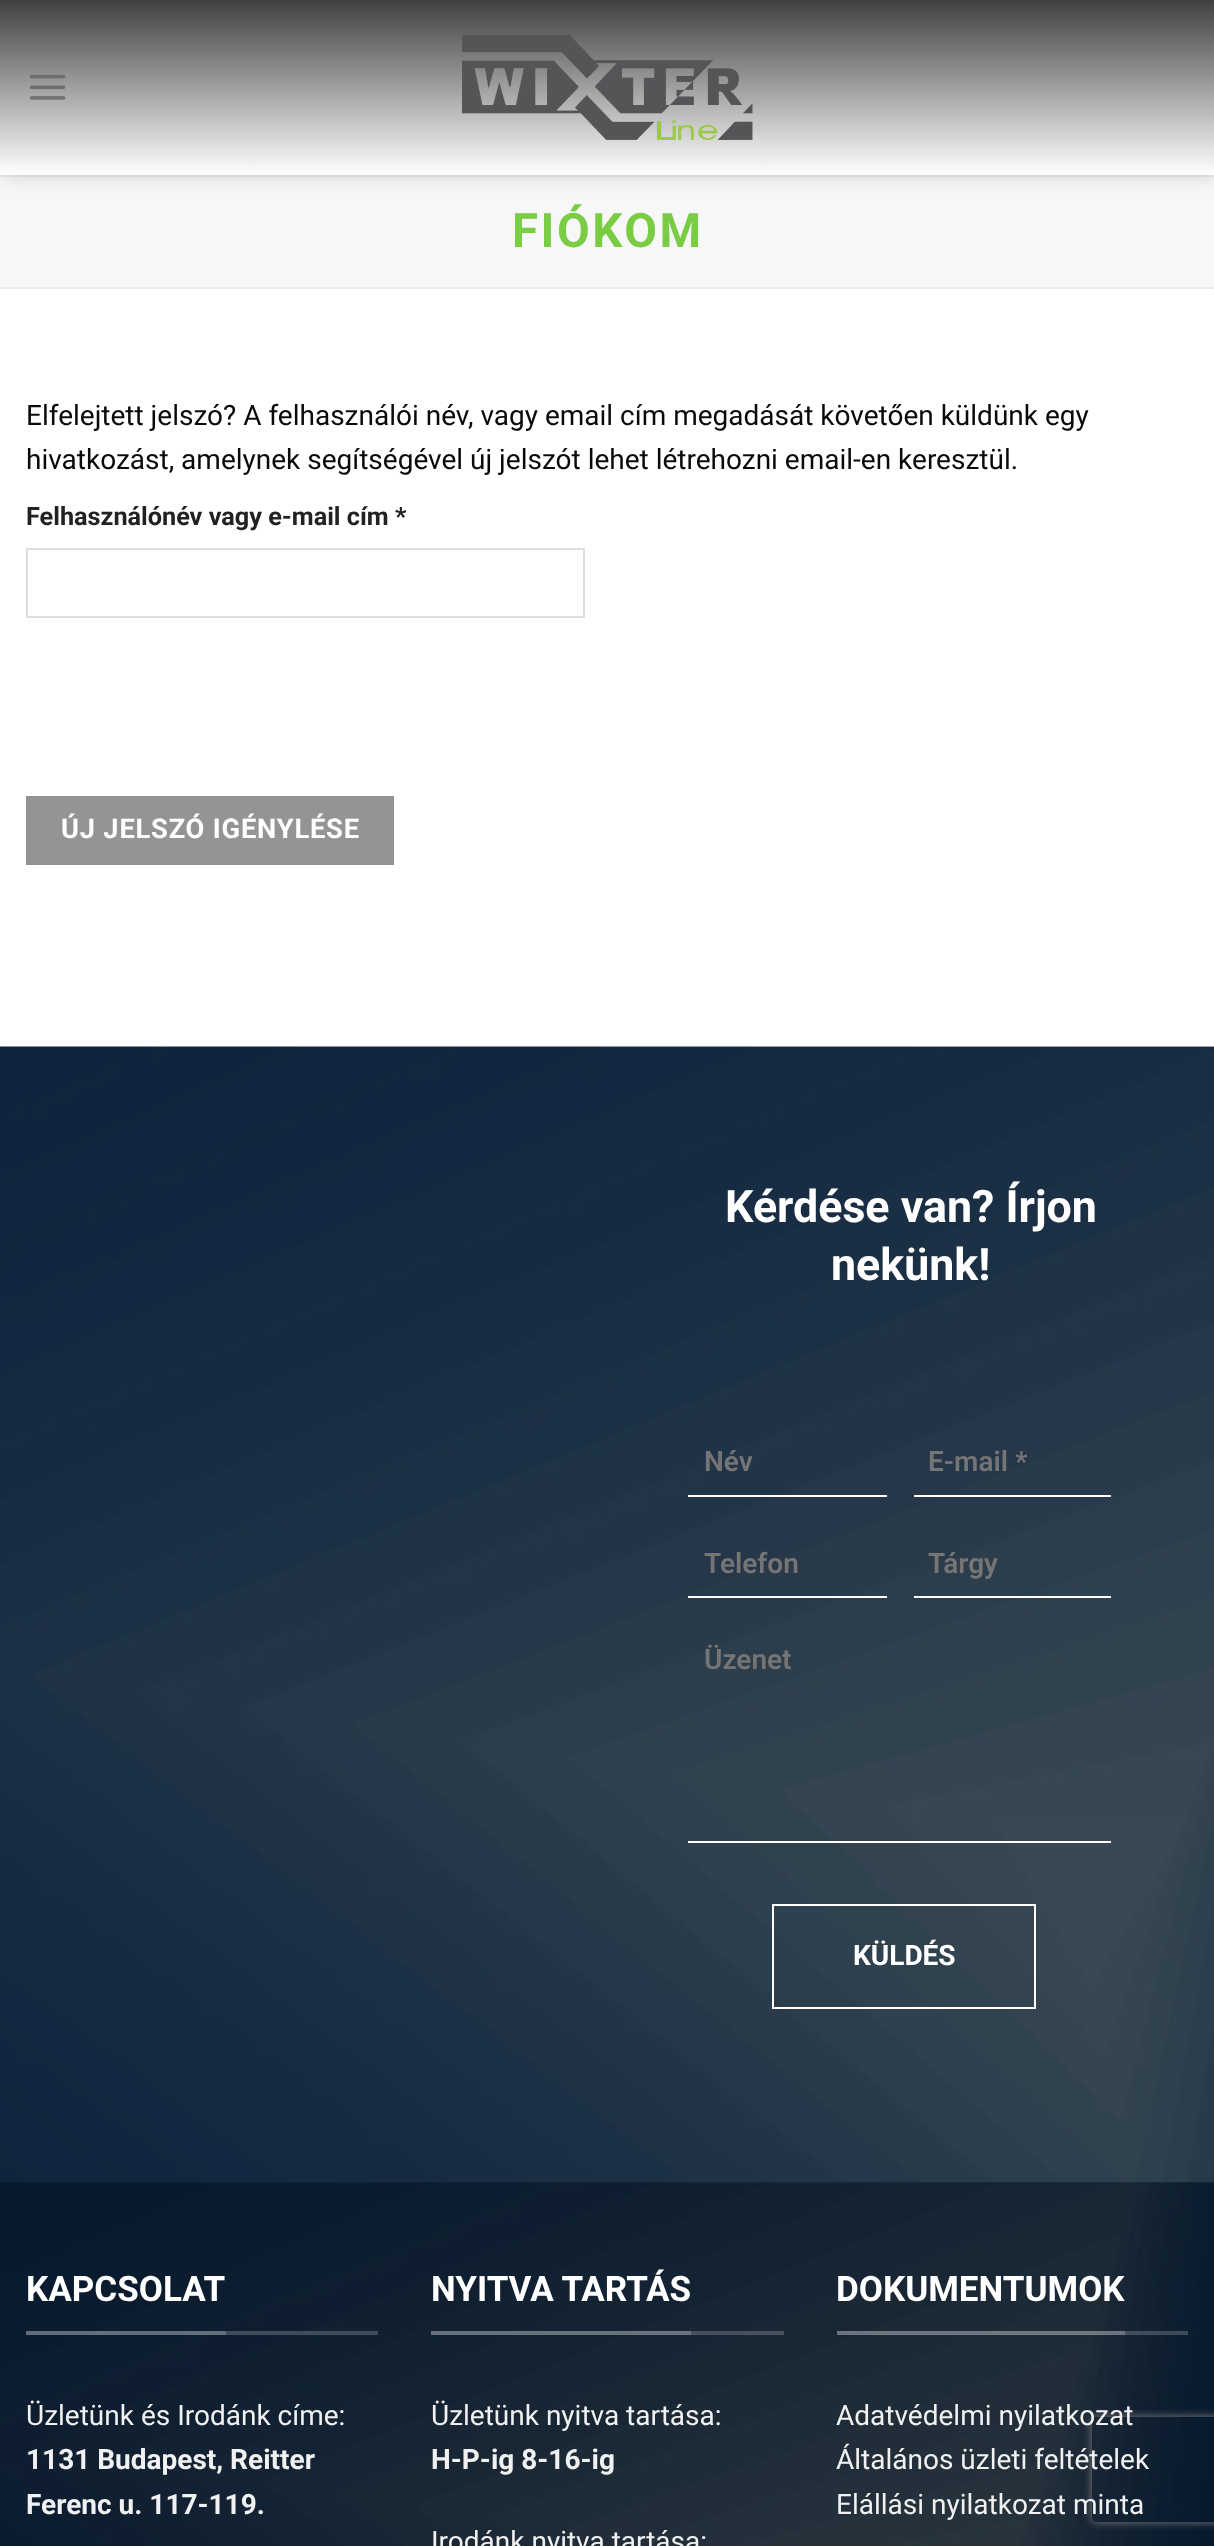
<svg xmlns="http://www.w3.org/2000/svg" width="1214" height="2546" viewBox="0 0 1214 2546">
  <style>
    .t1 { font: bold 47.5px Roboto; letter-spacing: 2.5px; fill: #79cc44; }
    .t2 { font: 28px Roboto; fill: #0a0a0a; }
    .t3 { font: bold 25.25px Roboto; fill: #222; }
    .t4 { font: bold 27.25px Roboto; letter-spacing: 0.8px; fill: #fff; }
    .t5 { font: bold 44.75px Roboto; fill: #fff; }
    .t6 { font: 600 28px Roboto; fill: #757575; }
    .t7 { font: bold 28px Roboto; fill: #fff; }
    .t8 { font: bold 35px Roboto; fill: #fff; }
    .t9 { font: 28px Roboto; fill: #f1f1f1; }
    .t10 { font: bold 28px Roboto; fill: #f1f1f1; }
  </style>
  <defs>
    <linearGradient id="g1" gradientUnits="userSpaceOnUse" x1="607" y1="0" x2="607" y2="175"><stop offset="0" stop-color="#404040"/><stop offset="1" stop-color="#fff"/></linearGradient>
    <clipPath id="clip1"><path d="M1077 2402H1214V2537H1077ZM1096 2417H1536C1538 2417 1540 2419 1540 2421V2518C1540 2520 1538 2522 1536 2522H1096C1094 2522 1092 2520 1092 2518V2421C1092 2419 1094 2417 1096 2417Z" clip-rule="evenodd"/></clipPath>
  </defs>
  <rect width="100%" height="100%" fill="#fff"/>
  <rect x="0" y="177" width="1214" height="110" fill="#f7f7f7"/>
  <rect x="0" y="175" width="1214" height="2" fill="#ececec"/>
  <rect x="2" y="2" width="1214" height="175" fill="#00000026" filter="blur(9px)"/>
  <rect x="0" y="0" width="1214" height="175" fill="url(#g1)"/>
  <image x="29" y="74" width="37" height="26" href="images/1.png"/>
  <image x="462" y="35" width="291" height="105" href="images/2.png"/>
  <rect x="0" y="287" width="1214" height="2" fill="#ececec"/>
  <text x="512" y="247" class="t1">FIÓKOM</text>
  <text x="26" y="425" class="t2">Elfelejtett jelszó? A felhasználói név, vagy email cím megadását követően küldünk egy</text>
  <text x="26" y="469" class="t2">hivatkozást, amelynek segítségével új jelszót lehet létrehozni email-en keresztül.</text>
  <text x="26" y="525" class="t3">Felhasználónév vagy e-mail cím *</text>
  <rect x="27" y="549" width="557" height="68" fill="none" stroke="#ddd" stroke-width="2"/>
  <rect x="27" y="797" width="366" height="67" fill="#939595" stroke="#919393" stroke-width="2"/>
  <text x="61" y="838" class="t4">ÚJ JELSZÓ IGÉNYLÉSE</text>
  <image x="0" y="1046" width="1214" height="1137" href="images/3.png"/>
  <text x="725" y="1222" class="t5">Kérdése van? Írjon</text>
  <text x="831" y="1280" class="t5">nekünk!</text>
  <rect x="688" y="1495" width="199" height="2" fill="#fff"/>
  <text x="704" y="1471" class="t6">Név</text>
  <rect x="914" y="1495" width="197" height="2" fill="#fff"/>
  <text x="928" y="1471" class="t6">E-mail *</text>
  <rect x="688" y="1596" width="199" height="2" fill="#fff"/>
  <text x="704" y="1573" class="t6">Telefon</text>
  <rect x="914" y="1596" width="197" height="2" fill="#fff"/>
  <text x="928" y="1573" class="t6">Tárgy</text>
  <rect x="688" y="1841" width="423" height="2" fill="#fff"/>
  <text x="704" y="1669" class="t6">Üzenet</text>
  <rect x="773" y="1905" width="262" height="103" fill="none" stroke="#fff" stroke-width="2"/>
  <text x="853" y="1965" class="t7">KÜLDÉS</text>
  <image x="0" y="2182" width="1214" height="364" href="images/4.png"/>
  <rect x="0" y="2182" width="1214" height="364" fill="#00172fd4"/>
  <rect x="26" y="2331" width="352" height="4" fill="#ffffff33"/>
  <rect x="26" y="2331" width="200" height="4" fill="#ffffff33"/>
  <text x="26" y="2301" class="t8">KAPCSOLAT</text>
  <text x="26" y="2425" class="t9">Üzletünk és Irodánk címe:</text>
  <text x="26" y="2469" class="t10">1131 Budapest, Reitter</text>
  <text x="26" y="2514" class="t10">Ferenc u. 117-119.</text>
  <rect x="431" y="2331" width="353" height="4" fill="#ffffff33"/>
  <rect x="431" y="2331" width="260" height="4" fill="#ffffff33"/>
  <text x="431" y="2301" class="t8">NYITVA TARTÁS</text>
  <text x="431" y="2425" class="t9">Üzletünk nyitva tartása:</text>
  <text x="431" y="2469" class="t10">H-P-ig 8-16-ig</text>
  <text x="431" y="2551" class="t9">Irodánk nyitva tartása:</text>
  <rect x="837" y="2331" width="351" height="4" fill="#ffffff33"/>
  <rect x="837" y="2331" width="288" height="4" fill="#ffffff33"/>
  <text x="836" y="2301" class="t8">DOKUMENTUMOK</text>
  <g clip-path="url(#clip1)">
    <rect x="1092" y="2417" width="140" height="105" rx="4" fill="#808080" filter="blur(4.5px)"/>
  </g>
  <text x="836" y="2425" class="t9">Adatvédelmi nyilatkozat</text>
  <text x="836" y="2469" class="t9">Általános üzleti feltételek</text>
  <text x="836" y="2514" class="t9">Elállási nyilatkozat minta</text>
</svg>
